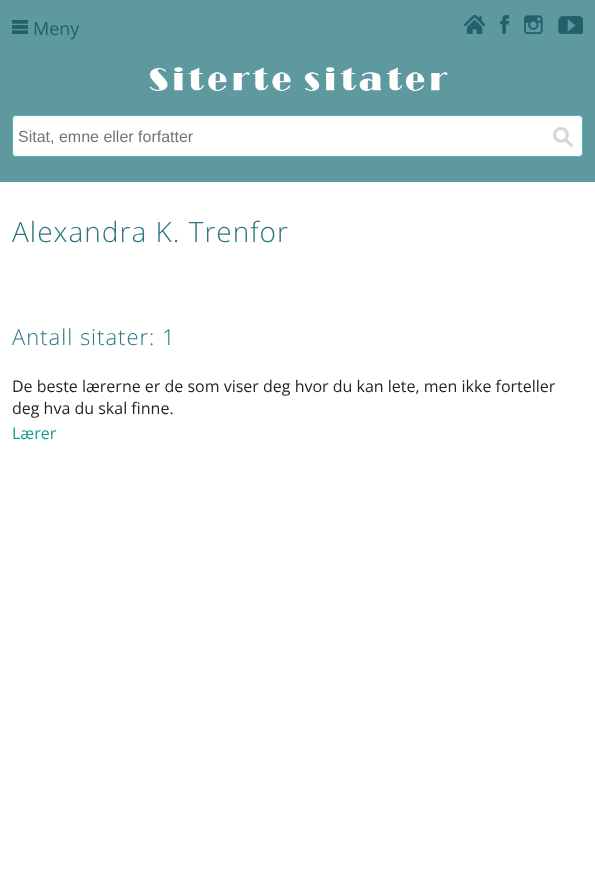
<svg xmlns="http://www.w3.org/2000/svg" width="595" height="890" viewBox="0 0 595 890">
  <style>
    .t1 { font: 18px Open Sans; fill: #1f616b; }
    .t2 { font: 16px Liberation Sans; fill: #757575; }
    .t3 { font: 300 28px Open Sans; letter-spacing: 1px; fill: #2b7783; }
    .t4 { font: 300 22px Open Sans; letter-spacing: 1px; fill: #2b7783; }
    .t5 { font: 16px Open Sans; fill: #1f2329; }
    .t6 { font: 16px Open Sans; fill: #119b9b; }
  </style>
  <rect width="100%" height="100%" fill="#fff"/>
  <rect x="0" y="0" width="595" height="182" fill="#5d999f"/>
  <image x="12" y="20" width="16" height="14" href="images/1.png"/>
  <text x="33" y="35" class="t1">Meny</text>
  <image x="464" y="15" width="21" height="19" href="images/2.png"/>
  <image x="500" y="15" width="9" height="19" href="images/3.png"/>
  <image x="524" y="15" width="19" height="19" href="images/4.png"/>
  <image x="558" y="16" width="25" height="18" href="images/5.png"/>
  <image x="149" y="67" width="299" height="24" href="images/6.png"/>
  <rect x="12.5" y="115.5" width="570" height="41" rx="3.5" fill="#fff" stroke="#54b5b5"/>
  <text x="18" y="142" class="t2">Sitat, emne eller forfatter</text>
  <image x="553" y="127" width="20" height="20" href="images/7.png"/>
  <text x="12" y="242" class="t3">Alexandra K. Trenfor</text>
  <text x="12" y="345" class="t4">Antall sitater: 1</text>
  <text x="12" y="392" class="t5">De beste lærerne er de som viser deg hvor du kan lete, men ikke forteller</text>
  <text x="12" y="414" class="t5">deg hva du skal finne.</text>
  <text x="12" y="439" class="t6">Lærer</text>
</svg>
